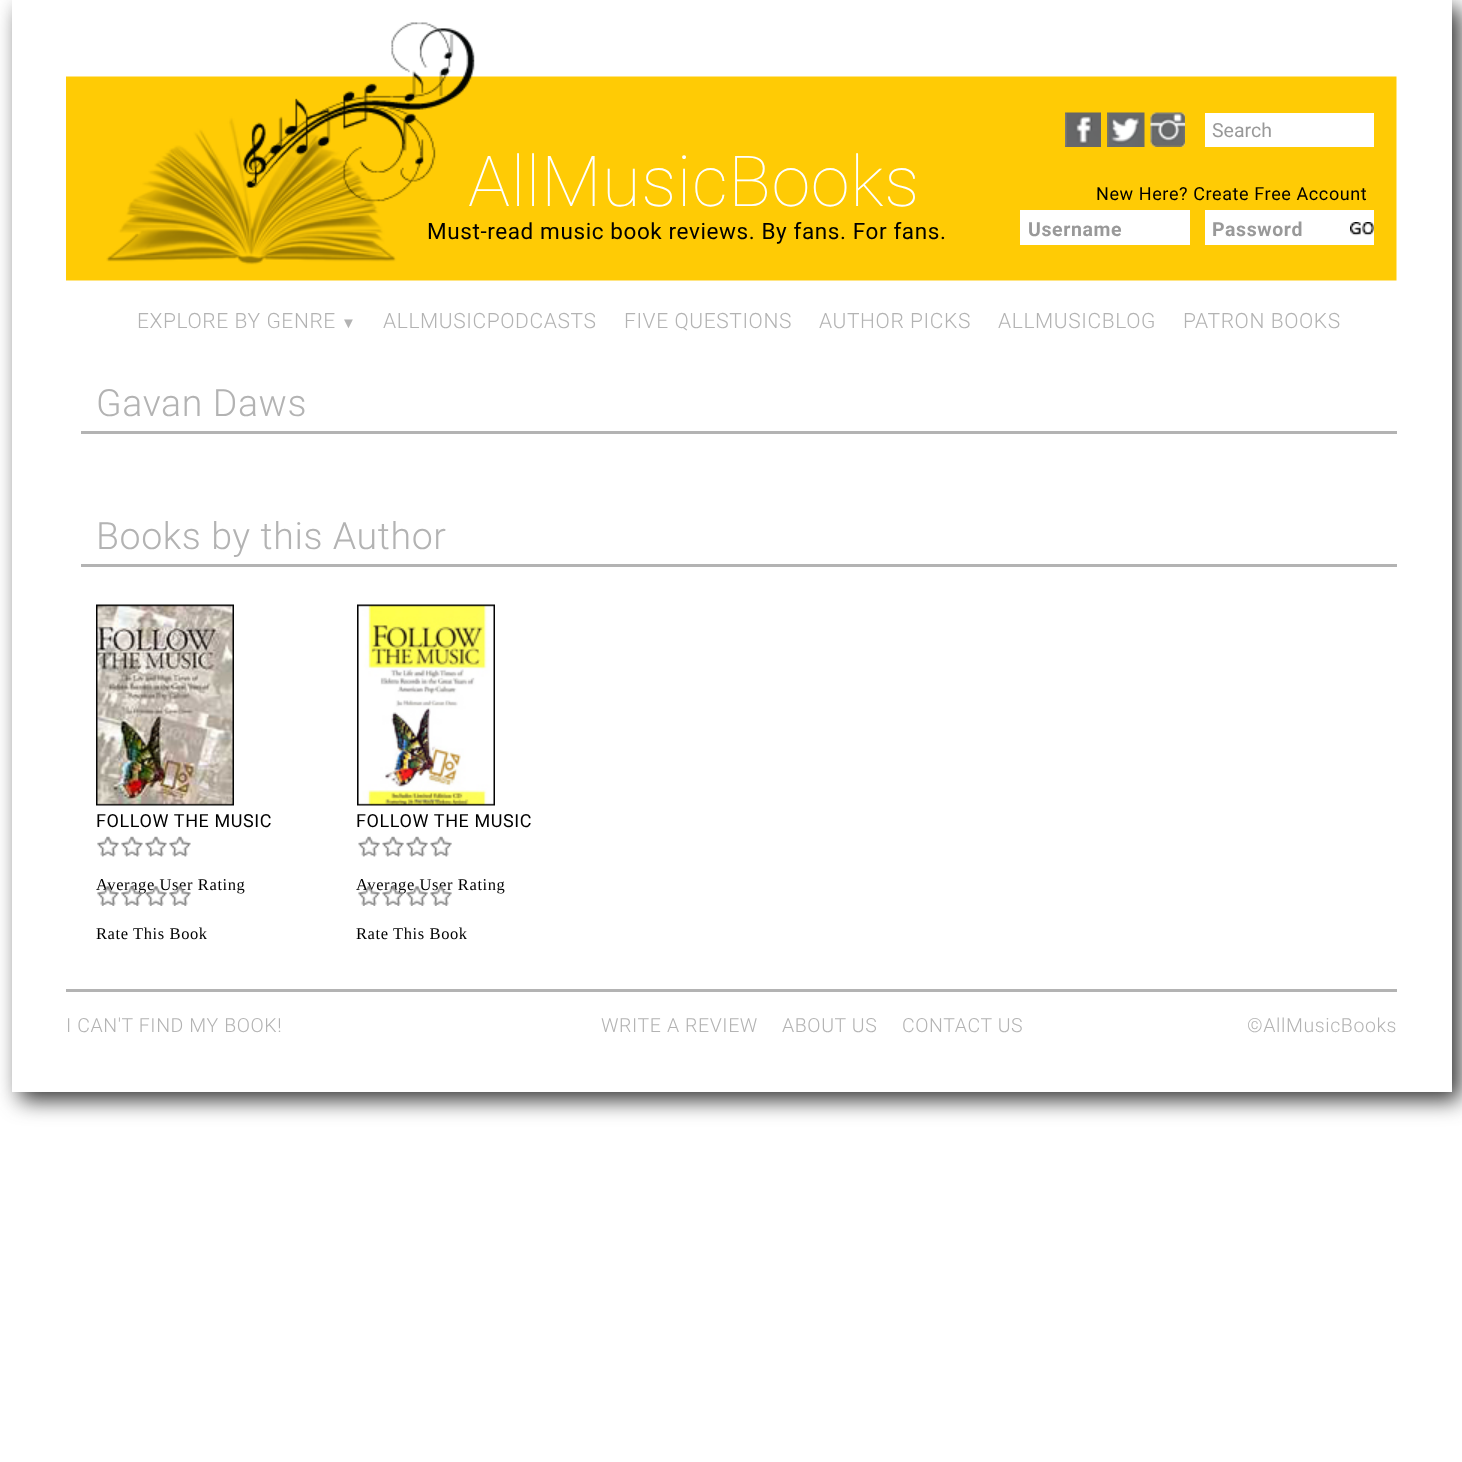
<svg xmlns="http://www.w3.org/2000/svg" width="1462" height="1462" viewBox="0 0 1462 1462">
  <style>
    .t1 { font: 100 70.5px Roboto; letter-spacing: 0.6px; fill: #fff; }
    .t2 { font: 22.5px Roboto; letter-spacing: 0.6px; fill: #000; }
    .t3 { font: 19.5px Roboto; fill: #999; }
    .t4 { font: 18px Roboto; letter-spacing: 0.6px; fill: #000; }
    .t5 { font: bold 19.5px Roboto; letter-spacing: 0.6px; fill: #999; }
    .t6 { font: 300 21px Roboto; letter-spacing: 0.6px; fill: #b3b3b3; }
    .t7 { font: 15px Liberation Sans; letter-spacing: 0.6px; fill: #b3b3b3; }
    .t8 { font: 300 37.5px Roboto; letter-spacing: 0.6px; fill: #b3b3b3; }
    .t9 { font: 16.5px Liberation Serif; letter-spacing: 0.6px; fill: #000; }
    .t10 { font: 300 19.5px Roboto; letter-spacing: 0.6px; fill: #b3b3b3; }
  </style>
  <defs>
    <clipPath id="clip1"><path d="M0 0H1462V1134H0ZM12 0H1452V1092H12Z" clip-rule="evenodd"/></clipPath>
  </defs>
  <rect width="100%" height="100%" fill="#fff"/>
  <g clip-path="url(#clip1)">
    <rect x="20" y="8" width="1440" height="1092" fill="#333" filter="blur(11px)"/>
  </g>
  <image x="66" y="22" width="1331" height="259" href="images/1.png"/>
  <text x="468" y="206" class="t1">AllMusicBooks</text>
  <text x="427" y="239" class="t2">Must-read music book reviews. By fans. For fans.</text>
  <image x="1065" y="112" width="36" height="35" href="images/2.png"/>
  <image x="1107" y="112" width="38" height="35" href="images/3.png"/>
  <image x="1150" y="112" width="35" height="35" href="images/4.png"/>
  <rect x="1205" y="113" width="169" height="34" fill="#fff"/>
  <text x="1212" y="137" class="t3">Search</text>
  <text x="1096" y="200" class="t4">New Here? Create Free Account</text>
  <rect x="1020" y="210" width="170" height="35" fill="#fff"/>
  <text x="1028" y="236" class="t5">Username</text>
  <rect x="1205" y="210" width="169" height="35" fill="#fff"/>
  <text x="1212" y="236" class="t5">Password</text>
  <image x="1350" y="222" width="24" height="14" href="images/5.png"/>
  <text x="137" y="328" class="t6">EXPLORE BY GENRE</text>
  <text x="341" y="328" class="t7">▼</text>
  <text x="383" y="328" class="t6">ALLMUSICPODCASTS</text>
  <text x="624" y="328" class="t6">FIVE QUESTIONS</text>
  <text x="819" y="328" class="t6">AUTHOR PICKS</text>
  <text x="998" y="328" class="t6">ALLMUSICBLOG</text>
  <text x="1183" y="328" class="t6">PATRON BOOKS</text>
  <rect x="81" y="431" width="1316" height="3" fill="#b3b3b3"/>
  <text x="96" y="416" class="t8">Gavan Daws</text>
  <rect x="81" y="564" width="1316" height="3" fill="#b3b3b3"/>
  <text x="96" y="549" class="t8">Books by this Author</text>
  <image x="96" y="604" width="138" height="202" href="images/6.png"/>
  <text x="96" y="827" class="t4">FOLLOW THE MUSIC</text>
  <image x="97" y="836" width="22" height="21" href="images/7.png"/>
  <image x="97" y="836" width="22" height="21" href="images/8.png"/>
  <image x="121" y="836" width="22" height="21" href="images/7.png"/>
  <image x="121" y="836" width="22" height="21" href="images/8.png"/>
  <image x="145" y="836" width="22" height="21" href="images/7.png"/>
  <image x="145" y="836" width="22" height="21" href="images/8.png"/>
  <image x="169" y="836" width="22" height="21" href="images/7.png"/>
  <image x="169" y="836" width="22" height="21" href="images/8.png"/>
  <text x="96" y="890" class="t9">Average User Rating</text>
  <image x="97" y="886" width="22" height="20" href="images/9.png"/>
  <image x="97" y="886" width="22" height="20" href="images/10.png"/>
  <image x="121" y="886" width="22" height="20" href="images/11.png"/>
  <image x="121" y="886" width="22" height="20" href="images/12.png"/>
  <image x="145" y="886" width="22" height="20" href="images/13.png"/>
  <image x="145" y="886" width="22" height="20" href="images/14.png"/>
  <image x="169" y="886" width="22" height="20" href="images/15.png"/>
  <image x="169" y="886" width="22" height="20" href="images/16.png"/>
  <text x="96" y="939" class="t9">Rate This Book</text>
  <image x="357" y="604" width="138" height="202" href="images/17.png"/>
  <text x="356" y="827" class="t4">FOLLOW THE MUSIC</text>
  <image x="358" y="836" width="22" height="21" href="images/18.png"/>
  <image x="358" y="836" width="22" height="21" href="images/19.png"/>
  <image x="382" y="836" width="22" height="21" href="images/18.png"/>
  <image x="382" y="836" width="22" height="21" href="images/19.png"/>
  <image x="406" y="836" width="22" height="21" href="images/18.png"/>
  <image x="406" y="836" width="22" height="21" href="images/19.png"/>
  <image x="430" y="836" width="22" height="21" href="images/18.png"/>
  <image x="430" y="836" width="22" height="21" href="images/19.png"/>
  <text x="356" y="890" class="t9">Average User Rating</text>
  <image x="358" y="886" width="22" height="20" href="images/20.png"/>
  <image x="358" y="886" width="22" height="20" href="images/21.png"/>
  <image x="382" y="886" width="22" height="20" href="images/22.png"/>
  <image x="382" y="886" width="22" height="20" href="images/23.png"/>
  <image x="406" y="886" width="22" height="20" href="images/24.png"/>
  <image x="406" y="886" width="22" height="20" href="images/25.png"/>
  <image x="430" y="886" width="22" height="20" href="images/26.png"/>
  <image x="430" y="886" width="22" height="20" href="images/27.png"/>
  <text x="356" y="939" class="t9">Rate This Book</text>
  <rect x="66" y="989" width="1331" height="3" fill="#b3b3b3"/>
  <text x="66" y="1032" class="t10">I CAN'T FIND MY BOOK!</text>
  <text x="601" y="1032" class="t10">WRITE A REVIEW</text>
  <text x="782" y="1032" class="t10">ABOUT US</text>
  <text x="902" y="1032" class="t10">CONTACT US</text>
  <text x="1247" y="1032" class="t10">©AllMusicBooks</text>
</svg>
